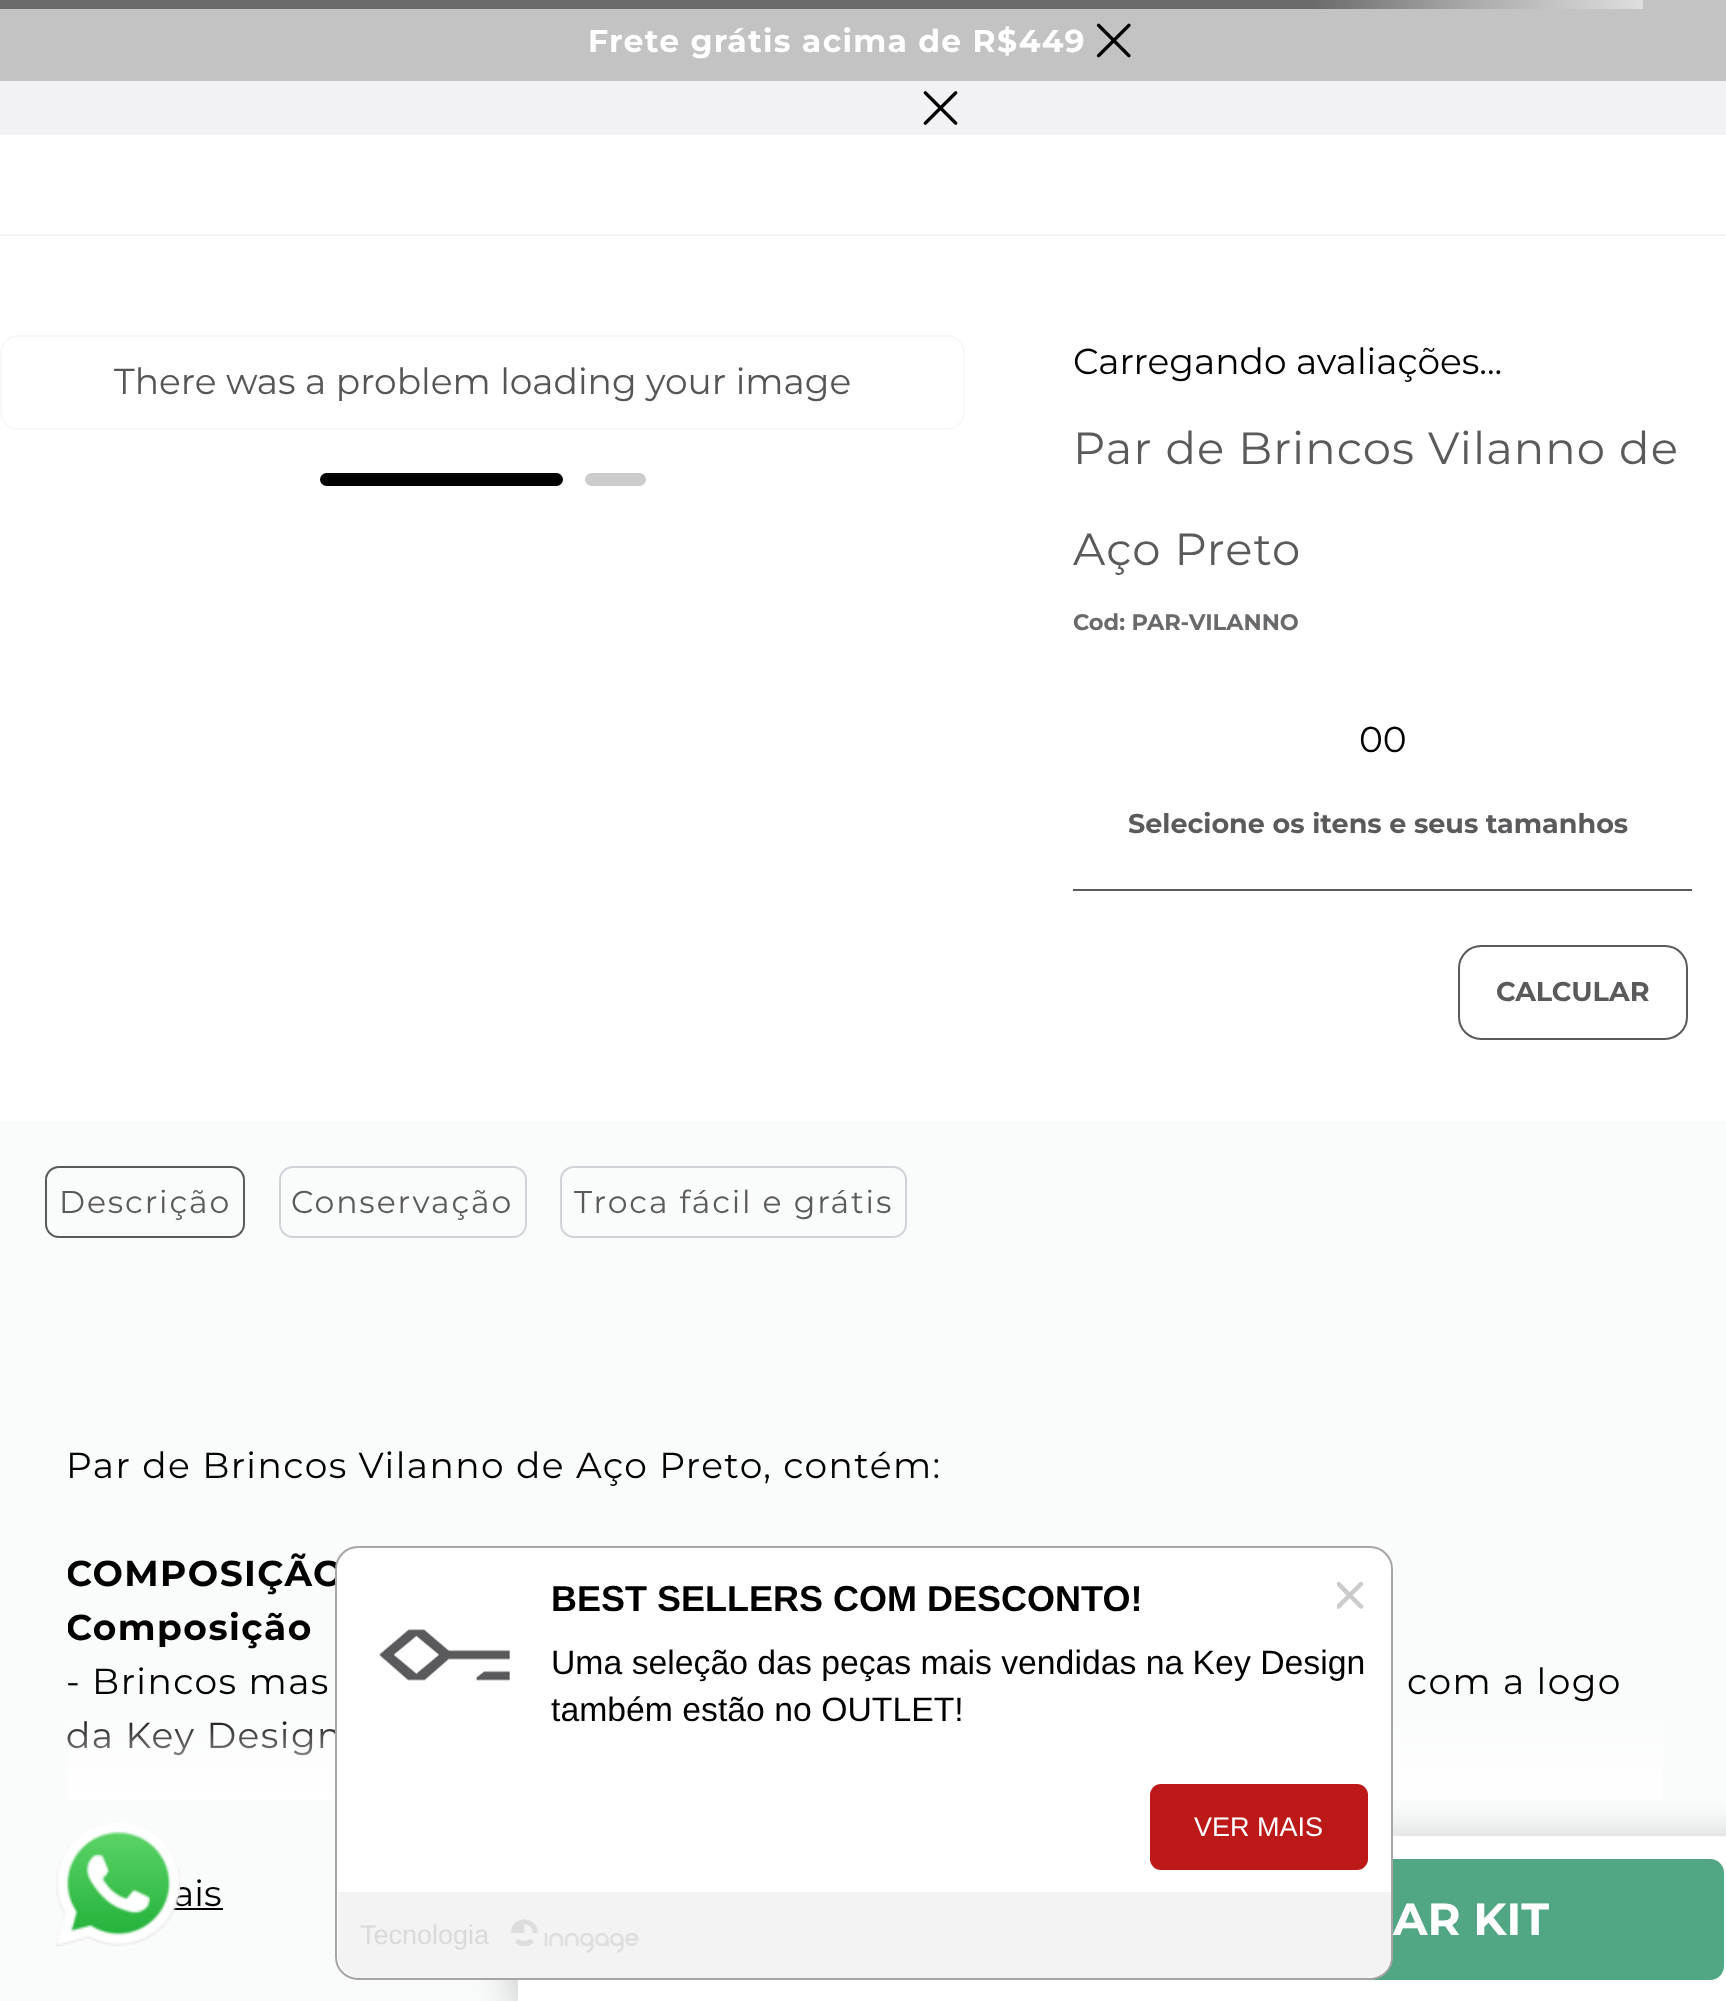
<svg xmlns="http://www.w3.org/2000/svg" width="1726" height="2001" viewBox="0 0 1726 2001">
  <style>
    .t1 { font: bold 31.5px Montserrat; letter-spacing: 1.25px; fill: #fff; }
    .t2 { font: 36px Montserrat; fill: #555; }
    .t3 { font: 36px Montserrat; fill: #000; }
    .t4 { font: 45px Montserrat; letter-spacing: 1.1px; fill: #5a5a5c; }
    .t5 { font: bold 22.5px Montserrat; fill: #686a6c; }
    .t6 { font: bold 27px Montserrat; fill: #5a5a5c; }
    .t7 { font: 36px Montserrat; letter-spacing: 1.45px; fill: #000; }
    .t8 { font: bold 45px Montserrat; fill: #fff; }
    .t9 { font: 31.5px Montserrat; letter-spacing: 1.9px; fill: #5a5a5c; }
    .t10 { font: bold 36px Montserrat; letter-spacing: 1.45px; fill: #000; }
    .t11 { font: bold 36px Liberation Sans; fill: #000; }
    .t12 { font: 33.75px Liberation Sans; fill: #000; }
    .t13 { font: 27px Liberation Sans; fill: #fff; }
    .t14 { font: 27px Liberation Sans; fill: #dadada; }
  </style>
  <defs>
    <linearGradient id="g1" gradientUnits="userSpaceOnUse" x1="0" y1="4.5" x2="1642" y2="4.5"><stop offset="0.8" stop-color="#6b6b6c"/><stop offset="0.9" stop-color="#adadae"/><stop offset="1" stop-color="#dedede"/></linearGradient>
    <linearGradient id="g2" gradientUnits="userSpaceOnUse" x1="865" y1="1800" x2="865" y2="1710"><stop offset="0" stop-color="#fff"/><stop offset="1" stop-color="#fff" stop-opacity="0"/></linearGradient>
    <clipPath id="clip1"><rect x="68" y="1350" width="1595" height="450"/></clipPath>
    <clipPath id="clip2"><rect x="1337" y="1582" width="27" height="27"/></clipPath>
  </defs>
  <rect width="100%" height="100%" fill="#fff"/>
  <rect x="0" y="0" width="1726" height="81" fill="#c3c3c3"/>
  <rect x="0" y="0" width="1643" height="9" fill="url(#g1)"/>
  <rect x="0" y="81" width="1726" height="54" fill="#f2f2f4"/>
  <text x="588" y="52" class="t1">Frete grátis acima de R$449</text>
  <image x="1096" y="23" width="35" height="35" href="images/1.png"/>
  <image x="923" y="91" width="35" height="34" href="images/2.png"/>
  <rect x="0" y="234" width="1726" height="2" fill="#f3f4f5"/>
  <rect x="1" y="336" width="963" height="93" rx="17" fill="none" stroke="#f8f8f8" stroke-width="2"/>
  <text x="114" y="394" class="t2">There was a problem loading your image</text>
  <rect x="320" y="473" width="243" height="13" rx="6.5" fill="#000"/>
  <rect x="585" y="473" width="61" height="13" rx="6.5" fill="#ccc"/>
  <text x="1073" y="374" class="t3">Carregando avaliações...</text>
  <text x="1073" y="464" class="t4">Par de Brincos Vilanno de</text>
  <text x="1073" y="565" class="t4">Aço Preto</text>
  <text x="1073" y="630" class="t5">Cod: PAR-VILANNO</text>
  <rect x="1073" y="889" width="619" height="2" fill="#5a5a5c"/>
  <text x="1359" y="752" class="t3">00</text>
  <text x="1128" y="833" class="t6">Selecione os itens e seus tamanhos</text>
  <rect x="0" y="1121" width="1726" height="880" fill="#fafbfb"/>
  <text x="66" y="1748" class="t7">da Key Design</text>
  <rect x="68" y="1721" width="1595" height="79" fill="url(#g2)"/>
  <rect x="518" y="1845" width="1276" height="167" fill="#00000040" filter="blur(22.5px)"/>
  <rect x="518" y="1836" width="1208" height="165" fill="#fff"/>
  <rect x="1040" y="1859" width="684" height="121" rx="14" fill="#51a683"/>
  <text x="1393" y="1935" class="t8">AR KIT</text>
  <rect x="1459" y="946" width="228" height="93" rx="22" fill="none" stroke="#5a5a5c" stroke-width="2"/>
  <text x="1496" y="1001" class="t6">CALCULAR</text>
  <rect x="46" y="1167" width="198" height="70" rx="13" fill="none" stroke="#5a5a5c" stroke-width="2"/>
  <text x="59" y="1213" class="t9">Descrição</text>
  <rect x="280" y="1167" width="246" height="70" rx="13" fill="none" stroke="#d0d3d8" stroke-width="2"/>
  <text x="291" y="1213" class="t9">Conservação</text>
  <rect x="561" y="1167" width="345" height="70" rx="13" fill="none" stroke="#d0d3d8" stroke-width="2"/>
  <text x="574" y="1213" class="t9">Troca fácil e grátis</text>
  <text x="66" y="1478" class="t7">Par de Brincos Vilanno de Aço Preto, contém:</text>
  <g clip-path="url(#clip1)">
    <text x="66" y="1586" class="t10">COMPOSIÇÃO</text>
    <text x="66" y="1640" class="t10">Composição</text>
  </g>
  <text x="66" y="1694" class="t7">- Brincos mas</text>
  <text x="1407" y="1694" class="t7">com a logo</text>
  <text x="173" y="1906" class="t3">ais</text>
  <rect x="172" y="1908" width="51" height="2" fill="#000"/>
  <image x="56" y="1823" width="124" height="124" href="images/3.png"/>
  <rect x="336" y="1547" width="1056" height="432" rx="22" fill="#fff" stroke="#a7a5a5" stroke-width="2"/>
  <g clip-path="url(#clip2)">
    <path d="M1338.5 1584L1361 1606.5M1338.5 1606.5L1361 1584" fill="none" stroke="#cbcbcb" stroke-width="4.5" stroke-linecap="round"/>
  </g>
  <image x="379" y="1629" width="131" height="52" href="images/4.png"/>
  <text x="551" y="1611" class="t11">BEST SELLERS COM DESCONTO!</text>
  <text x="551" y="1674" class="t12">Uma seleção das peças mais vendidas na Key Design</text>
  <text x="551" y="1721" class="t12">também estão no OUTLET!</text>
  <rect x="1150" y="1784" width="218" height="86" rx="11" fill="#be1919"/>
  <text x="1194" y="1836" class="t13">VER MAIS</text>
  <path d="M338 1892H1391V1955C1391 1967.5 1380.5 1978 1368 1978H361C348.5 1978 338 1967.5 338 1955Z" fill="#f3f3f3"/>
  <text x="360" y="1944" class="t14">Tecnologia</text>
  <image x="510" y="1919" width="129" height="34" href="images/5.png"/>
</svg>
